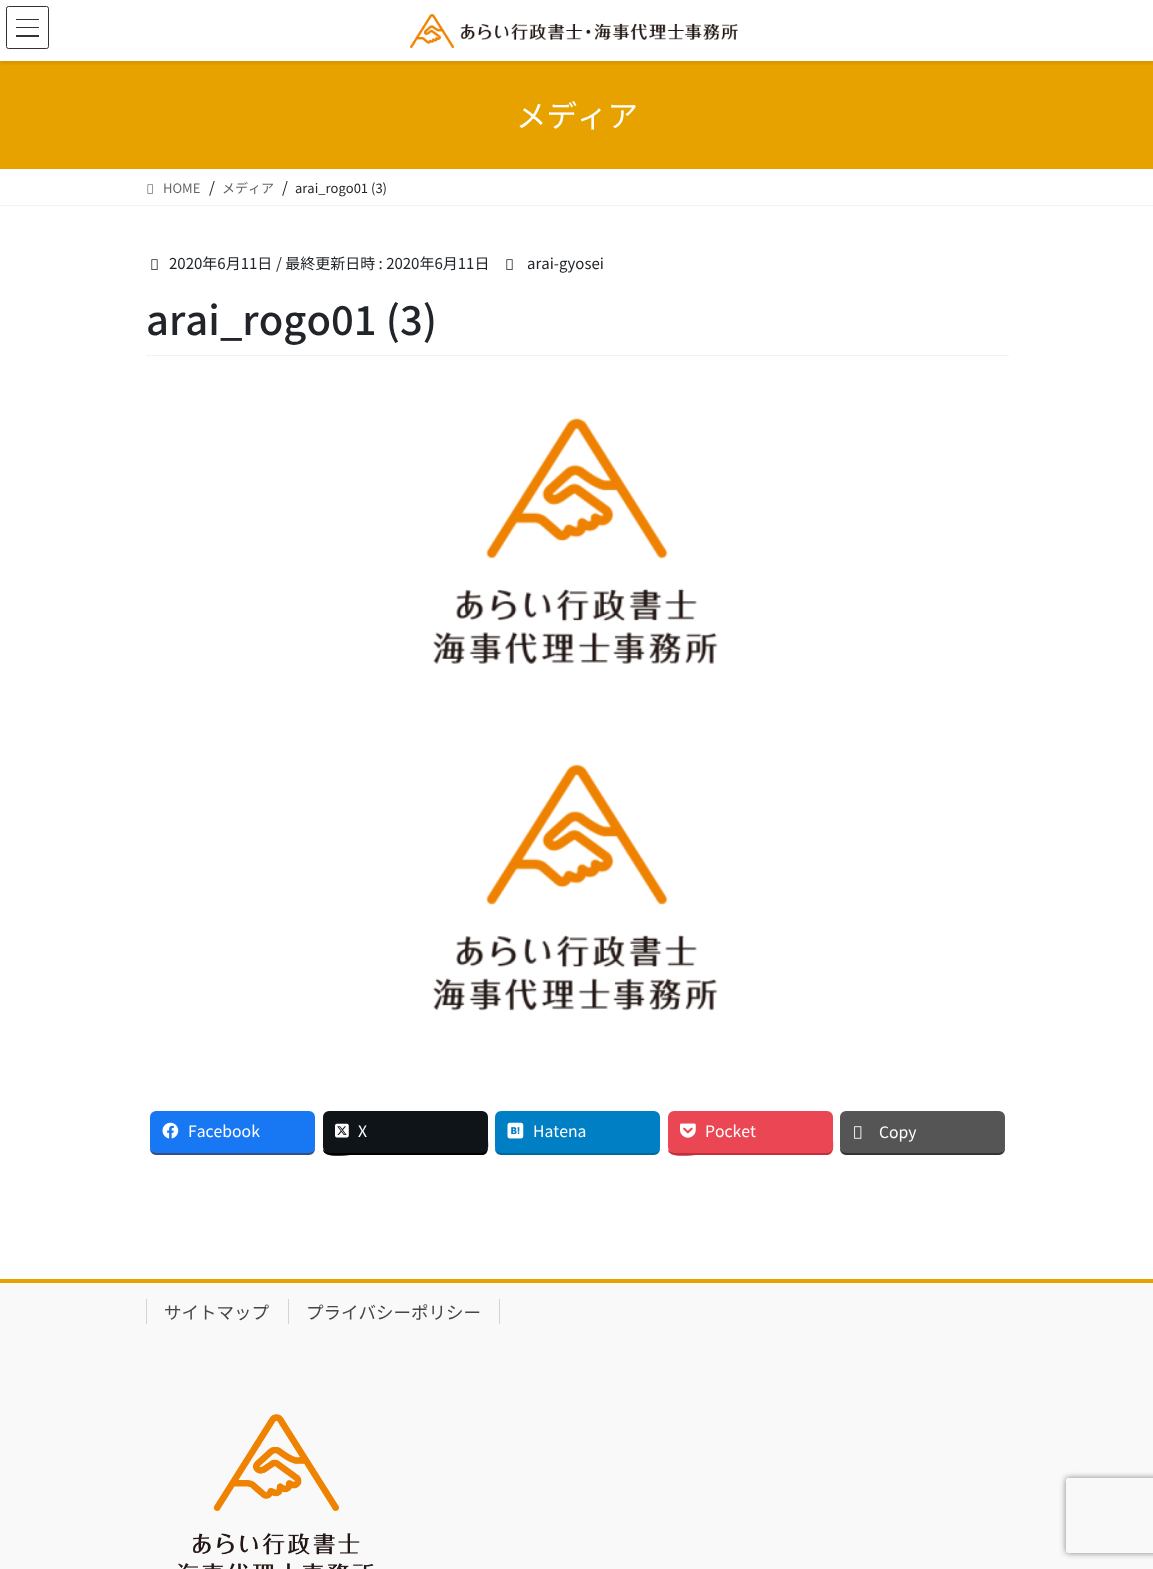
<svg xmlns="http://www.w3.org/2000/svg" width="1153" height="1569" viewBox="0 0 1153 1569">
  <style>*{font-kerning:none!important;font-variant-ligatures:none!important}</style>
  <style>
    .t1 { font: 30.5px Noto Sans JP; fill: #fff; }
    .t2 { font: 13px Noto Sans JP; fill: #666; }
    .t3 { font: 15px Noto Sans JP; fill: #212529; }
    .t4 { font: 13px Noto Sans JP; fill: #212529; }
    .t5 { font: 500 40px Noto Sans JP; fill: #212529; }
    .t6 { font: 15.75px Noto Sans JP; fill: #fff; }
    .t7 { font: 17.5px Noto Sans JP; fill: #464646; }
  </style>
  <defs>
    <clipPath id="clip1"><rect x="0" y="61" width="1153" height="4"/></clipPath>
    <clipPath id="clip2"><path d="M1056 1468H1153V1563H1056ZM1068.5 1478H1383.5C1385 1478 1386 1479 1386 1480.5V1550.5C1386 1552 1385 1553 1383.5 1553H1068.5C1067 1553 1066 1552 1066 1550.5V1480.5C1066 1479 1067 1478 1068.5 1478Z" clip-rule="evenodd"/></clipPath>
  </defs>
  <rect width="100%" height="100%" fill="#fff"/>
  <rect x="0" y="61" width="1153" height="108" fill="#e8a200"/>
  <g clip-path="url(#clip1)">
    <rect x="0" y="1" width="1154" height="62" fill="#0000001a" filter="blur(2px)"/>
  </g>
  <image x="410" y="14" width="328" height="35" href="images/1.png"/>
  <rect x="16" y="19" width="23" height="1" fill="#333"/>
  <rect x="16" y="27" width="23" height="1" fill="#333"/>
  <rect x="16" y="35" width="23" height="2" fill="#333"/>
  <rect x="6.5" y="6.5" width="42" height="42" rx="2" fill="none" stroke="#333"/>
  <text x="516" y="127" class="t1">メディア</text>
  <rect x="0" y="205" width="1153" height="1" fill="#f2f2f2"/>
  <image x="147" y="184" width="6" height="10" href="images/2.png"/>
  <text x="163" y="193" class="t2">HOME</text>
  <text x="209" y="193" class="t3">/</text>
  <text x="222" y="193" class="t2">メディア</text>
  <text x="282" y="193" class="t3">/</text>
  <text x="295" y="193" class="t4">arai_rogo01 (3)</text>
  <rect x="146" y="355" width="863" height="1" fill="#f2f2f2"/>
  <image x="151" y="259" width="7" height="11" href="images/3.png"/>
  <text x="169" y="269" class="t3">2020年6月11日</text>
  <text x="276" y="269" class="t3">/ 最終更新日時 : 2020年6月11日</text>
  <image x="506" y="259" width="7" height="11" href="images/3.png"/>
  <text x="527" y="269" class="t3">arai-gyosei</text>
  <text x="146" y="335" class="t5">arai_rogo01 (3)</text>
  <image x="433" y="418" width="285" height="246" href="images/4.png"/>
  <image x="433" y="764" width="285" height="247" href="images/5.png"/>
  <path d="M150 1146V1149C150 1152 153 1155 156 1155H309C312 1155 315 1152 315 1149V1146C315 1150 312 1152 309 1152H156C153 1152 150 1150 150 1146Z" fill="#344e84"/>
  <rect x="150" y="1111" width="165" height="42" rx="6" fill="#1877f2"/>
  <image x="162" y="1122" width="17" height="17" href="images/6.png"/>
  <text x="188" y="1137" class="t6">Facebook</text>
  <path d="M323 1149C323 1159 343 1155 354 1155H482C490 1155 488 1144 488 1139V1118V1146C488 1150 485 1152 481 1152H329C326 1152 324 1151 323 1149Z" fill="#000"/>
  <rect x="323" y="1111" width="165" height="42" rx="6" fill="#0f1419"/>
  <image x="335" y="1123" width="14" height="15" href="images/7.png"/>
  <text x="358" y="1137" class="t6">X</text>
  <path d="M495 1146V1149C495 1152 498 1155 501 1155H654C657 1155 660 1152 660 1149V1146C660 1150 657 1152 654 1152H501C498 1152 495 1150 495 1146Z" fill="#00679f"/>
  <rect x="495" y="1111" width="165" height="42" rx="6" fill="#007fc5"/>
  <image x="507" y="1122" width="17" height="17" href="images/8.png"/>
  <text x="533" y="1137" class="t6">Hatena</text>
  <path d="M668 1149C668 1159 688 1155 700 1155H827C835 1155 833 1144 833 1139L832 1118V1146C832 1150 830 1152 826 1152H674C671 1152 669 1151 668 1149Z" fill="#c1303c"/>
  <rect x="668" y="1111" width="165" height="42" rx="6" fill="#ea4654"/>
  <image x="680" y="1123" width="16" height="15" href="images/9.png"/>
  <text x="705" y="1137" class="t6">Pocket</text>
  <path d="M840 1146V1149C840 1152 843 1155 846 1155H999C1002 1155 1005 1152 1005 1149V1146C1005 1150 1002 1152 999 1152H846C843 1152 840 1150 840 1146Z" fill="#333"/>
  <rect x="840" y="1111" width="165" height="42" rx="6" fill="#555"/>
  <image x="854" y="1126" width="8" height="13" href="images/10.png"/>
  <text x="879" y="1138" class="t6">Copy</text>
  <rect x="0" y="1283" width="1153" height="286" fill="#f9f9f9"/>
  <rect x="0" y="1279" width="1153" height="4" fill="#e8a200"/>
  <text x="164" y="1319" class="t7">サイトマップ</text>
  <rect x="146" y="1299" width="1" height="25" fill="#d4d4d4"/>
  <text x="306" y="1319" class="t7">プライバシーポリシー</text>
  <rect x="499" y="1299" width="1" height="25" fill="#d4d4d4"/>
  <rect x="288" y="1299" width="1" height="25" fill="#d4d4d4"/>
  <image x="178" y="1414" width="196" height="155" href="images/11.png"/>
  <g clip-path="url(#clip2)">
    <rect x="1066" y="1478" width="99" height="75" rx="2.5" fill="#808080" filter="blur(3px)"/>
  </g>
</svg>
